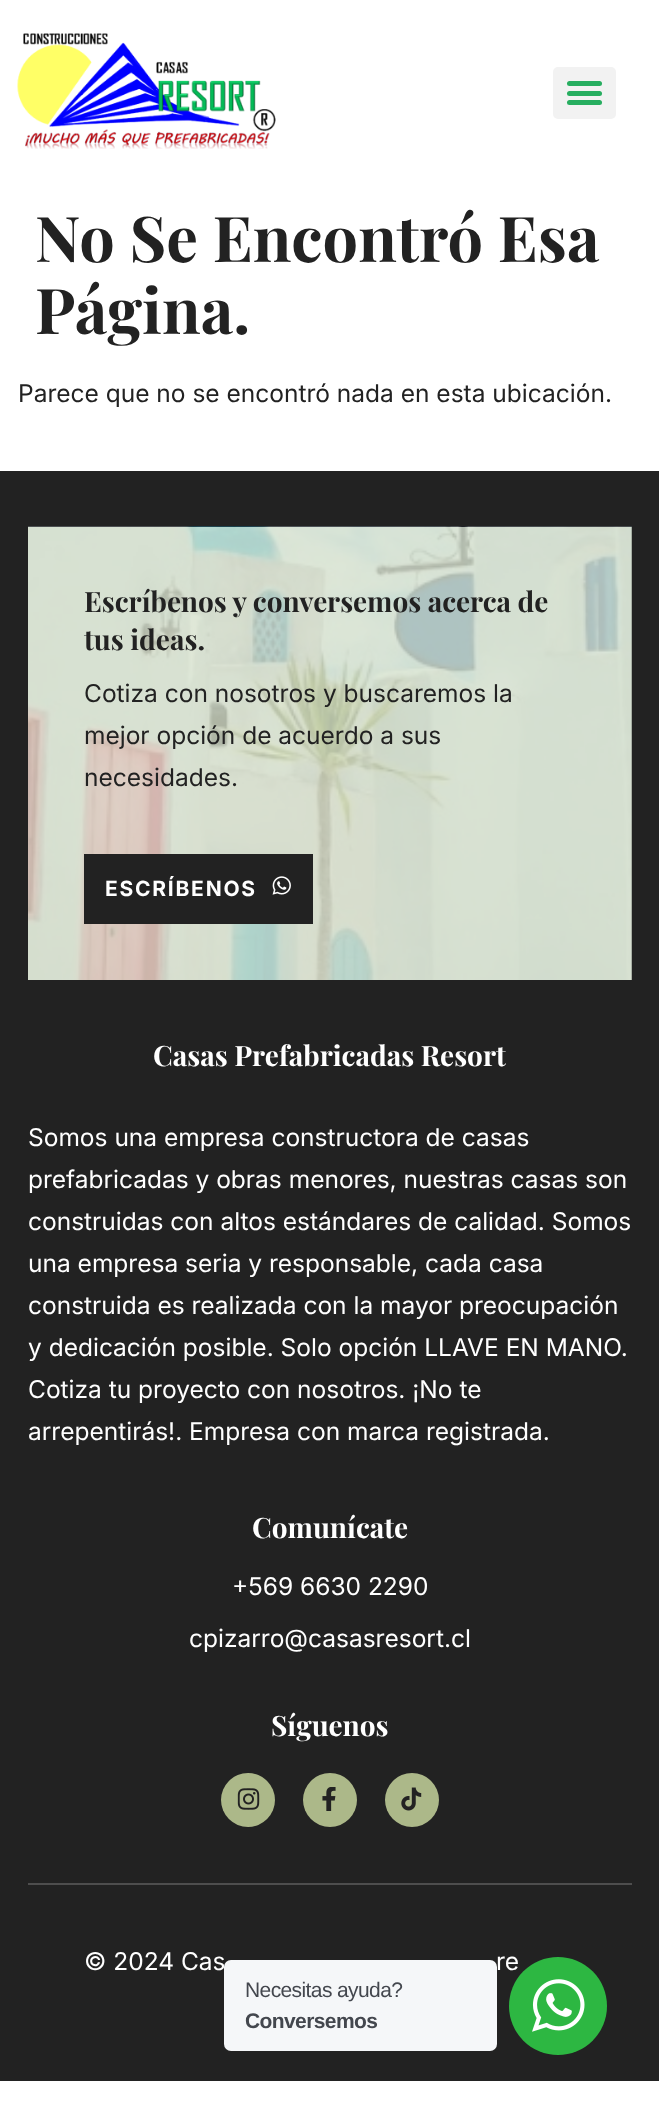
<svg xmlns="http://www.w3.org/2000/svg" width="659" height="2106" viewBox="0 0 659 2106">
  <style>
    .t1 { font: bold 63px Playfair Display; fill: #222; }
    .t2 { font: 24.5px Inter; fill: #222; }
    .t3 { font: bold 28px Playfair Display; fill: #222; }
    .t4 { font: bold 21px Inter; letter-spacing: 1.75px; fill: #fff; }
    .t5 { font: bold 28px Playfair Display; fill: #fff; }
    .t6 { font: 24.5px Inter; fill: #fff; }
    .t7 { font: 21px Liberation Sans; letter-spacing: -0.6px; fill: #43474e; }
    .t8 { font: bold 21px Liberation Sans; letter-spacing: -0.6px; fill: #43474e; }
  </style>
  <rect width="100%" height="100%" fill="#fff"/>
  <image x="17" y="33" width="259" height="116" href="images/1.png"/>
  <rect x="553" y="67" width="63" height="52" rx="5" fill="#f2f2f2"/>
  <rect x="567" y="91" width="35" height="5" rx="2.5" fill="#27ae60"/>
  <rect x="567" y="81" width="35" height="5" rx="2.5" fill="#27ae60"/>
  <rect x="567" y="100" width="35" height="5" rx="2.5" fill="#27ae60"/>
  <text x="35" y="262" class="t1">No Se Encontró Esa</text>
  <text x="35" y="334" class="t1">Página.</text>
  <text x="18" y="402" class="t2">Parece que no se encontró nada en esta ubicación.</text>
  <rect x="0" y="471" width="659" height="1610" fill="#222"/>
  <image x="28" y="526" width="604" height="454" href="images/2.png"/>
  <text x="84" y="612" class="t3">Escríbenos y conversemos acerca de</text>
  <text x="84" y="650" class="t3">tus ideas.</text>
  <text x="84" y="702" class="t2">Cotiza con nosotros y buscaremos la</text>
  <text x="84" y="744" class="t2">mejor opción de acuerdo a sus</text>
  <text x="84" y="786" class="t2">necesidades.</text>
  <rect x="84" y="854" width="229" height="70" fill="#222"/>
  <text x="105" y="896" class="t4">ESCRÍBENOS</text>
  <image x="272" y="876" width="19" height="19" href="images/3.png"/>
  <text x="153" y="1066" class="t5">Casas Prefabricadas Resort</text>
  <text x="28" y="1146" class="t6">Somos una empresa constructora de casas</text>
  <text x="28" y="1188" class="t6">prefabricadas y obras menores, nuestras casas son</text>
  <text x="28" y="1230" class="t6">construidas con altos estándares de calidad. Somos</text>
  <text x="28" y="1272" class="t6">una empresa seria y responsable, cada casa</text>
  <text x="28" y="1314" class="t6">construida es realizada con la mayor preocupación</text>
  <text x="28" y="1356" class="t6">y dedicación posible. Solo opción LLAVE EN MANO.</text>
  <text x="28" y="1398" class="t6">Cotiza tu proyecto con nosotros. ¡No te</text>
  <text x="28" y="1440" class="t6">arrepentirás!. Empresa con marca registrada.</text>
  <text x="252" y="1538" class="t5">Comunícate</text>
  <text x="232" y="1595" class="t6">+569 6630 2290</text>
  <text x="189" y="1647" class="t6">cpizarro@casasresort.cl</text>
  <text x="271" y="1736" class="t5">Síguenos</text>
  <circle cx="248" cy="1800" r="27" fill="#acb889"/>
  <image x="237" y="1788" width="23" height="22" href="images/4.png"/>
  <circle cx="330" cy="1800" r="27" fill="#acb889"/>
  <image x="322" y="1787" width="14" height="24" href="images/5.png"/>
  <circle cx="412" cy="1800" r="27" fill="#acb889"/>
  <image x="401" y="1787" width="21" height="24" href="images/6.png"/>
  <rect x="28" y="1883" width="604" height="2" fill="#4e4e4e"/>
  <text x="84" y="1970" class="t6">© 2024 Cas</text>
  <text x="496" y="1970" class="t6">re</text>
  <rect x="224" y="1960" width="273" height="91" rx="7" fill="#f5f7f9"/>
  <text x="245" y="1997" class="t7">Necesitas ayuda?</text>
  <text x="245" y="2028" class="t8">Conversemos</text>
  <circle cx="558" cy="2006" r="49" fill="#2db742"/>
  <image x="532" y="1979" width="53" height="53" href="images/7.png"/>
</svg>
